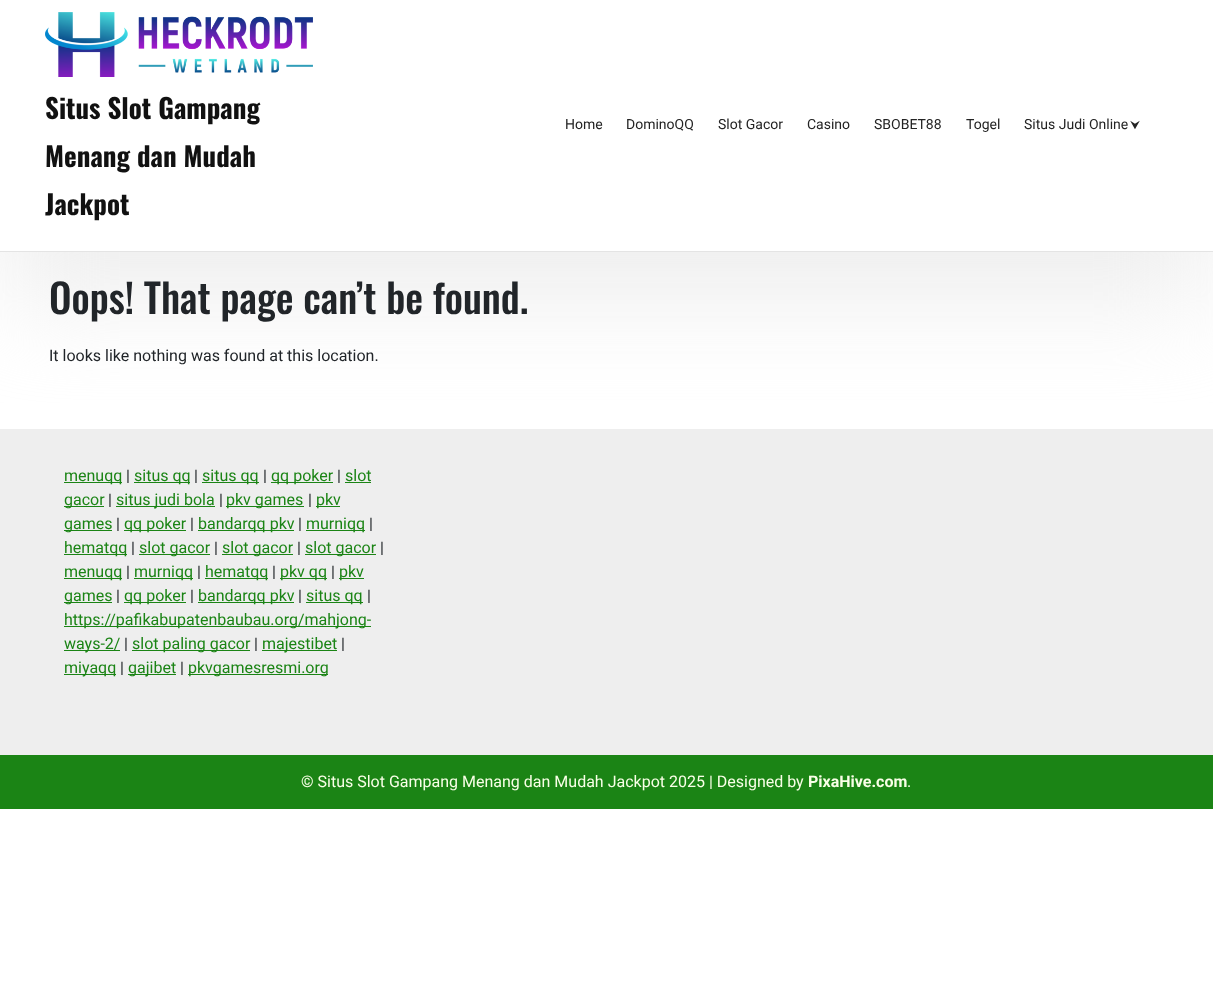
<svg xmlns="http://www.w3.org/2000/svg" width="1213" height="1006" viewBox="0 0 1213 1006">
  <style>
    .t1 { font: bold 27px Oswald; fill: #111; }
    .t2 { font: 14px Roboto; fill: #232323; }
    .t3 { font: 12px FreeSans; fill: #232323; }
    .t4 { font: 500 40px Oswald; fill: #212529; }
    .t5 { font: 16px Roboto; fill: #212529; }
    .t6 { font: 16px Roboto; fill: #1b8415; }
    .t7 { font: 16px Roboto; fill: #f9ffe7; }
    .t8 { font: bold 16px Roboto; fill: #f9ffe7; }
  </style>
  <defs>
    <clipPath id="clip1"><rect x="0" y="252" width="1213" height="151"/></clipPath>
  </defs>
  <rect width="100%" height="100%" fill="#fff"/>
  <g clip-path="url(#clip1)">
    <rect x="0" y="48" width="1213" height="252" fill="#eee" filter="blur(50px)"/>
  </g>
  <rect x="0" y="251" width="1213" height="1" fill="#e4e4e4"/>
  <image x="45" y="12" width="268" height="65" href="images/1.png"/>
  <text x="45" y="119" class="t1">Situs Slot Gampang</text>
  <text x="45" y="167" class="t1">Menang dan Mudah</text>
  <text x="45" y="215" class="t1">Jackpot</text>
  <text x="565" y="129" class="t2">Home</text>
  <text x="626" y="129" class="t2">DominoQQ</text>
  <text x="718" y="129" class="t2">Slot Gacor</text>
  <text x="807" y="129" class="t2">Casino</text>
  <text x="874" y="129" class="t2">SBOBET88</text>
  <text x="966" y="129" class="t2">Togel</text>
  <text x="1024" y="129" class="t2">Situs Judi Online</text>
  <text x="1130" y="129" class="t3">⮟</text>
  <text x="49" y="314" class="t4">Oops! That page can’t be found.</text>
  <text x="49" y="361" class="t5">It looks like nothing was found at this location.</text>
  <rect x="0" y="429" width="1213" height="326" fill="#eee"/>
  <rect x="64" y="482" width="58" height="1" fill="#1b8415"/>
  <text x="64" y="481" class="t6">menuqq</text>
  <text x="126" y="481" class="t5">|</text>
  <rect x="134" y="482" width="56" height="1" fill="#1b8415"/>
  <text x="134" y="481" class="t6">situs qq</text>
  <text x="194" y="481" class="t5">|</text>
  <rect x="202" y="482" width="57" height="1" fill="#1b8415"/>
  <text x="202" y="481" class="t6">situs qq</text>
  <text x="263" y="481" class="t5">|</text>
  <rect x="271" y="482" width="62" height="1" fill="#1b8415"/>
  <text x="271" y="481" class="t6">qq poker</text>
  <text x="337" y="481" class="t5">|</text>
  <text x="345" y="481" class="t6">slot</text>
  <rect x="345" y="482" width="26" height="1" fill="#1b8415"/>
  <rect x="64" y="506" width="40" height="1" fill="#1b8415"/>
  <text x="64" y="505" class="t6">gacor</text>
  <text x="108" y="505" class="t5">|</text>
  <rect x="116" y="506" width="99" height="1" fill="#1b8415"/>
  <text x="116" y="505" class="t6">situs judi bola</text>
  <text x="219" y="505" class="t5">|</text>
  <rect x="226" y="506" width="78" height="1" fill="#1b8415"/>
  <text x="226" y="505" class="t6">pkv games</text>
  <text x="308" y="505" class="t5">|</text>
  <rect x="316" y="506" width="24" height="1" fill="#1b8415"/>
  <text x="316" y="505" class="t6">pkv</text>
  <rect x="64" y="530" width="48" height="1" fill="#1b8415"/>
  <text x="64" y="529" class="t6">games</text>
  <text x="116" y="529" class="t5">|</text>
  <rect x="124" y="530" width="62" height="1" fill="#1b8415"/>
  <text x="124" y="529" class="t6">qq poker</text>
  <text x="190" y="529" class="t5">|</text>
  <rect x="198" y="530" width="96" height="1" fill="#1b8415"/>
  <text x="198" y="529" class="t6">bandarqq pkv</text>
  <text x="298" y="529" class="t5">|</text>
  <rect x="306" y="530" width="59" height="1" fill="#1b8415"/>
  <text x="306" y="529" class="t6">murniqq</text>
  <text x="369" y="529" class="t5">|</text>
  <rect x="64" y="554" width="63" height="1" fill="#1b8415"/>
  <text x="64" y="553" class="t6">hematqq</text>
  <text x="131" y="553" class="t5">|</text>
  <rect x="139" y="554" width="71" height="1" fill="#1b8415"/>
  <text x="139" y="553" class="t6">slot gacor</text>
  <text x="214" y="553" class="t5">|</text>
  <rect x="222" y="554" width="71" height="1" fill="#1b8415"/>
  <text x="222" y="553" class="t6">slot gacor</text>
  <text x="297" y="553" class="t5">|</text>
  <rect x="305" y="554" width="71" height="1" fill="#1b8415"/>
  <text x="305" y="553" class="t6">slot gacor</text>
  <text x="380" y="553" class="t5">|</text>
  <rect x="64" y="578" width="58" height="1" fill="#1b8415"/>
  <text x="64" y="577" class="t6">menuqq</text>
  <text x="126" y="577" class="t5">|</text>
  <rect x="134" y="578" width="59" height="1" fill="#1b8415"/>
  <text x="134" y="577" class="t6">murniqq</text>
  <text x="197" y="577" class="t5">|</text>
  <rect x="205" y="578" width="63" height="1" fill="#1b8415"/>
  <text x="205" y="577" class="t6">hematqq</text>
  <text x="272" y="577" class="t5">|</text>
  <rect x="280" y="578" width="47" height="1" fill="#1b8415"/>
  <text x="280" y="577" class="t6">pkv qq</text>
  <text x="331" y="577" class="t5">|</text>
  <rect x="339" y="578" width="25" height="1" fill="#1b8415"/>
  <text x="339" y="577" class="t6">pkv</text>
  <rect x="64" y="602" width="48" height="1" fill="#1b8415"/>
  <text x="64" y="601" class="t6">games</text>
  <text x="116" y="601" class="t5">|</text>
  <rect x="124" y="602" width="62" height="1" fill="#1b8415"/>
  <text x="124" y="601" class="t6">qq poker</text>
  <text x="190" y="601" class="t5">|</text>
  <rect x="198" y="602" width="96" height="1" fill="#1b8415"/>
  <text x="198" y="601" class="t6">bandarqq pkv</text>
  <text x="298" y="601" class="t5">|</text>
  <rect x="306" y="602" width="57" height="1" fill="#1b8415"/>
  <text x="306" y="601" class="t6">situs qq</text>
  <text x="367" y="601" class="t5">|</text>
  <rect x="64" y="626" width="307" height="1" fill="#1b8415"/>
  <text x="64" y="625" class="t6">https://pafikabupatenbaubau.org/mahjong-</text>
  <rect x="64" y="650" width="56" height="1" fill="#1b8415"/>
  <text x="64" y="649" class="t6">ways-2/</text>
  <text x="124" y="649" class="t5">|</text>
  <rect x="132" y="650" width="118" height="1" fill="#1b8415"/>
  <text x="132" y="649" class="t6">slot paling gacor</text>
  <text x="254" y="649" class="t5">|</text>
  <rect x="262" y="650" width="75" height="1" fill="#1b8415"/>
  <text x="262" y="649" class="t6">majestibet</text>
  <text x="341" y="649" class="t5">|</text>
  <rect x="64" y="674" width="52" height="1" fill="#1b8415"/>
  <text x="64" y="673" class="t6">miyaqq</text>
  <text x="120" y="673" class="t5">|</text>
  <rect x="128" y="674" width="48" height="1" fill="#1b8415"/>
  <text x="128" y="673" class="t6">gajibet</text>
  <text x="180" y="673" class="t5">|</text>
  <rect x="188" y="674" width="140" height="1" fill="#1b8415"/>
  <text x="188" y="673" class="t6">pkvgamesresmi.org</text>
  <rect x="0" y="755" width="1213" height="54" fill="#1b8415"/>
  <text x="301" y="787" class="t7">© Situs Slot Gampang Menang dan Mudah Jackpot 2025 | Designed by</text>
  <text x="808" y="787" class="t8">PixaHive.com</text>
  <text x="907" y="787" class="t7">.</text>
</svg>
